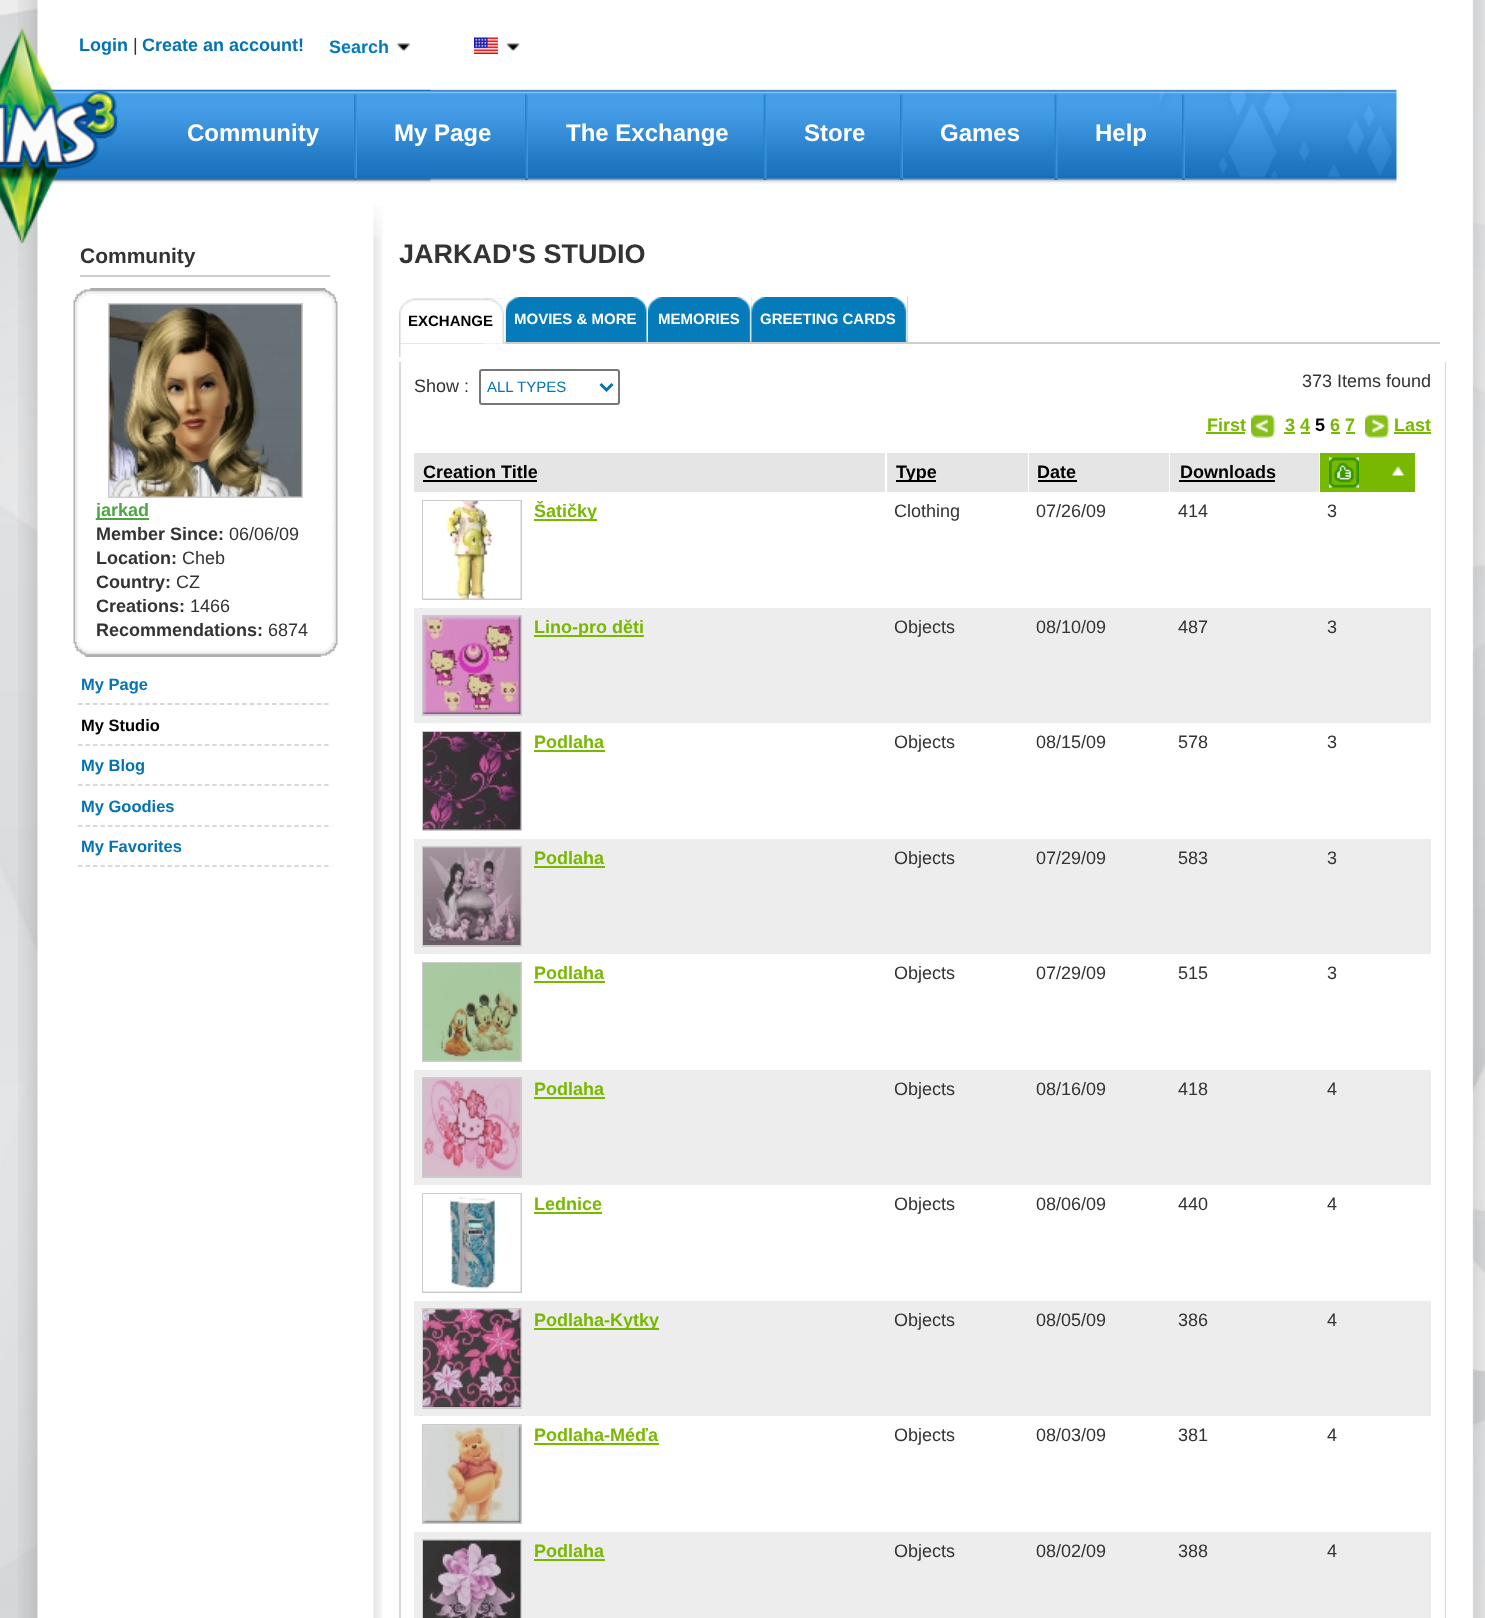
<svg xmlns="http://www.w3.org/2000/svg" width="1485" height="1618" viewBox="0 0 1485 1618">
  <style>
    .t1 { font: bold 18px Liberation Sans; fill: #0473b2; }
    .t2 { font: 18px Liberation Sans; fill: #333; }
    .t3 { font: bold 18px Liberation Sans; fill: #057bba; }
    .t4 { font: bold 24px Liberation Sans; fill: #fff; }
    .t5 { font: bold 21px Liberation Sans; fill: #333; }
    .t6 { font: bold 18px Liberation Sans; fill: #4fa544; }
    .t7 { font: bold 18px Liberation Sans; fill: #333; }
    .t8 { font: bold 16.5px Liberation Sans; fill: #0473b2; }
    .t9 { font: bold 16.5px Liberation Sans; fill: #000; }
    .t10 { font: bold 27px Liberation Sans; fill: #333; }
    .t11 { font: bold 15px Liberation Sans; fill: #000; }
    .t12 { font: bold 15px Liberation Sans; fill: #fff; }
    .t13 { font: 15px Liberation Sans; fill: #0473b2; }
    .t14 { font: bold 18px Liberation Sans; fill: #78b800; }
    .t15 { font: bold 18px Liberation Sans; fill: #000; }
  </style>
  <rect width="100%" height="100%" fill="#fff"/>
  <image x="0" y="0" width="1485" height="1618" href="images/1.png"/>
  <image x="18" y="0" width="1467" height="1618" href="images/11.png"/>
  <image x="49" y="89" width="382" height="93" href="images/5.png"/>
  <image x="49" y="89" width="1348" height="95" href="images/6.png"/>
  <image x="0" y="28" width="118" height="216" href="images/7.png"/>
  <text x="79" y="51" class="t1">Login</text>
  <text x="133" y="51" class="t2">|</text>
  <text x="142" y="51" class="t1">Create an account!</text>
  <image x="396" y="43" width="15" height="8" href="images/2.png"/>
  <text x="329" y="53" class="t3">Search</text>
  <image x="506" y="43" width="14" height="8" href="images/3.png"/>
  <image x="474" y="37" width="24" height="17" href="images/4.png"/>
  <image x="354" y="94" width="3" height="86" href="images/8.png"/>
  <text x="187" y="141" class="t4">Community</text>
  <image x="525" y="94" width="3" height="86" href="images/8.png"/>
  <text x="394" y="141" class="t4">My Page</text>
  <image x="763" y="94" width="4" height="86" href="images/9.png"/>
  <text x="566" y="141" class="t4">The Exchange</text>
  <image x="900" y="94" width="3" height="86" href="images/10.png"/>
  <text x="804" y="141" class="t4">Store</text>
  <image x="1054" y="94" width="4" height="86" href="images/9.png"/>
  <text x="940" y="141" class="t4">Games</text>
  <image x="1182" y="94" width="3" height="86" href="images/8.png"/>
  <text x="1095" y="141" class="t4">Help</text>
  <image x="373" y="205" width="10" height="32" href="images/12.png"/>
  <image x="373" y="237" width="10" height="1381" href="images/13.png"/>
  <rect x="80" y="275" width="250" height="2" fill="#ccc"/>
  <text x="80" y="263" class="t5">Community</text>
  <image x="73" y="288" width="265" height="15" href="images/14.png"/>
  <image x="73" y="303" width="265" height="339" href="images/15.png"/>
  <rect x="109" y="304" width="193" height="193" fill="none" stroke="#ccc" stroke-width="2"/>
  <image x="109" y="304" width="193" height="193" href="images/16.png"/>
  <rect x="96" y="518" width="53" height="2" fill="#4fa544"/>
  <text x="96" y="516" class="t6">jarkad</text>
  <text x="96" y="540" class="t7">Member Since:</text>
  <text x="229" y="540" class="t2">06/06/09</text>
  <text x="96" y="564" class="t7">Location:</text>
  <text x="182" y="564" class="t2">Cheb</text>
  <text x="96" y="588" class="t7">Country:</text>
  <text x="176" y="588" class="t2">CZ</text>
  <text x="96" y="612" class="t7">Creations:</text>
  <text x="190" y="612" class="t2">1466</text>
  <text x="96" y="636" class="t7">Recommendations:</text>
  <text x="268" y="636" class="t2">6874</text>
  <image x="73" y="642" width="265" height="15" href="images/17.png"/>
  <path d="M78 704H328.5" fill="none" stroke="#ccc" stroke-width="1.5" stroke-dasharray="4.5 2.96"/>
  <text x="81" y="690" class="t8">My Page</text>
  <path d="M78 745H328.5" fill="none" stroke="#ccc" stroke-width="1.5" stroke-dasharray="4.5 2.96"/>
  <text x="81" y="731" class="t9">My Studio</text>
  <path d="M78 785H328.5" fill="none" stroke="#ccc" stroke-width="1.5" stroke-dasharray="4.5 2.96"/>
  <text x="81" y="771" class="t8">My Blog</text>
  <path d="M78 826H328.5" fill="none" stroke="#ccc" stroke-width="1.5" stroke-dasharray="4.5 2.96"/>
  <text x="81" y="812" class="t8">My Goodies</text>
  <path d="M78 866H328.5" fill="none" stroke="#ccc" stroke-width="1.5" stroke-dasharray="4.5 2.96"/>
  <text x="81" y="852" class="t8">My Favorites</text>
  <text x="399" y="263" class="t10">JARKAD'S STUDIO</text>
  <rect x="399" y="342" width="1041" height="2" fill="#cfcdcd"/>
  <image x="399" y="343" width="2" height="14" href="images/18.png"/>
  <image x="505" y="297" width="127" height="45" href="images/21.png"/>
  <image x="399" y="298" width="107" height="46" href="images/19.png"/>
  <image x="483" y="298" width="23" height="46" href="images/20.png"/>
  <text x="408" y="326" class="t11">EXCHANGE</text>
  <image x="632" y="297" width="16" height="45" href="images/22.png"/>
  <text x="514" y="324" class="t12">MOVIES &amp; MORE</text>
  <image x="648" y="297" width="104" height="45" href="images/23.png"/>
  <image x="736" y="297" width="16" height="45" href="images/24.png"/>
  <text x="658" y="324" class="t12">MEMORIES</text>
  <image x="751" y="297" width="157" height="45" href="images/25.png"/>
  <image x="892" y="297" width="16" height="45" href="images/26.png"/>
  <text x="760" y="324" class="t12">GREETING CARDS</text>
  <rect x="1445" y="362" width="1" height="1256" fill="#dad8d9"/>
  <rect x="399" y="362" width="2" height="1256" fill="#dad8d9"/>
  <text x="414" y="392" class="t2">Show :</text>
  <rect x="480" y="370" width="139" height="34" rx="2" fill="none" stroke="#767676" stroke-width="2"/>
  <path d="M600.5 384L606.5 390L612.5 384" fill="none" stroke="#0473b2" stroke-width="3"/>
  <text x="487" y="392" class="t13">ALL TYPES</text>
  <text x="1302" y="387" class="t2">373 Items found</text>
  <text x="1207" y="431" class="t14">First</text>
  <rect x="1206" y="432" width="39" height="2" fill="#78b800"/>
  <image x="1251" y="414" width="24" height="24" href="images/27.png"/>
  <text x="1285" y="431" class="t14">3 4</text>
  <rect x="1284" y="432" width="11" height="2" fill="#78b800"/>
  <text x="1315" y="431" class="t15">5</text>
  <text x="1330" y="431" class="t14">6 7</text>
  <rect x="1331" y="432" width="9" height="2" fill="#78b800"/>
  <image x="1365" y="414" width="24" height="24" href="images/28.png"/>
  <text x="1394" y="431" class="t14">Last</text>
  <rect x="1394" y="432" width="37" height="2" fill="#78b800"/>
  <rect x="1301" y="432" width="9" height="2" fill="#78b800"/>
  <rect x="1346" y="432" width="9" height="2" fill="#78b800"/>
  <rect x="414" y="453" width="471" height="39" fill="#e5e5e5"/>
  <text x="423" y="478" class="t15">Creation Title</text>
  <rect x="423" y="480" width="114" height="2" fill="#000"/>
  <rect x="887" y="453" width="141" height="39" fill="#e5e5e5"/>
  <rect x="896" y="480" width="40" height="2" fill="#000"/>
  <text x="896" y="478" class="t15">Type</text>
  <rect x="1029" y="453" width="140" height="39" fill="#e5e5e5"/>
  <text x="1037" y="478" class="t15">Date</text>
  <rect x="1038" y="480" width="39" height="2" fill="#000"/>
  <rect x="1170" y="453" width="149" height="39" fill="#e5e5e5"/>
  <text x="1180" y="478" class="t15">Downloads</text>
  <rect x="1179" y="480" width="96" height="2" fill="#000"/>
  <rect x="1320" y="453" width="95" height="39" fill="#78b800"/>
  <image x="1391" y="466" width="14" height="10" href="images/29.png"/>
  <image x="1329" y="457" width="30" height="31" href="images/30.png"/>
  <rect x="423" y="501" width="98" height="98" fill="none" stroke="#ccc" stroke-width="2"/>
  <image x="423" y="501" width="98" height="98" href="images/31.png"/>
  <rect x="534" y="519" width="63" height="2" fill="#78b800"/>
  <text x="534" y="517" class="t14">Šatičky</text>
  <text x="894" y="517" class="t2">Clothing</text>
  <text x="1036" y="517" class="t2">07/26/09</text>
  <text x="1178" y="517" class="t2">414</text>
  <text x="1327" y="517" class="t2">3</text>
  <rect x="414" y="608" width="1017" height="115" fill="#ededed"/>
  <rect x="423" y="616" width="98" height="99" fill="none" stroke="#ccc" stroke-width="2"/>
  <image x="423" y="616" width="98" height="98" href="images/32.png"/>
  <rect x="534" y="635" width="110" height="2" fill="#78b800"/>
  <text x="534" y="633" class="t14">Lino-pro děti</text>
  <text x="894" y="633" class="t2">Objects</text>
  <text x="1036" y="633" class="t2">08/10/09</text>
  <text x="1178" y="633" class="t2">487</text>
  <text x="1327" y="633" class="t2">3</text>
  <rect x="423" y="732" width="98" height="98" fill="none" stroke="#ccc" stroke-width="2"/>
  <image x="423" y="732" width="98" height="98" href="images/33.png"/>
  <text x="534" y="748" class="t14">Podlaha</text>
  <rect x="534" y="750" width="71" height="2" fill="#78b800"/>
  <text x="894" y="748" class="t2">Objects</text>
  <text x="1036" y="748" class="t2">08/15/09</text>
  <text x="1178" y="748" class="t2">578</text>
  <text x="1327" y="748" class="t2">3</text>
  <rect x="414" y="839" width="1017" height="115" fill="#ededed"/>
  <rect x="423" y="847" width="98" height="99" fill="none" stroke="#ccc" stroke-width="2"/>
  <image x="423" y="847" width="98" height="98" href="images/34.png"/>
  <text x="534" y="864" class="t14">Podlaha</text>
  <rect x="534" y="866" width="71" height="2" fill="#78b800"/>
  <text x="894" y="864" class="t2">Objects</text>
  <text x="1036" y="864" class="t2">07/29/09</text>
  <text x="1178" y="864" class="t2">583</text>
  <text x="1327" y="864" class="t2">3</text>
  <rect x="423" y="963" width="98" height="98" fill="none" stroke="#ccc" stroke-width="2"/>
  <image x="423" y="963" width="98" height="98" href="images/35.png"/>
  <text x="534" y="979" class="t14">Podlaha</text>
  <rect x="534" y="981" width="71" height="2" fill="#78b800"/>
  <text x="894" y="979" class="t2">Objects</text>
  <text x="1036" y="979" class="t2">07/29/09</text>
  <text x="1178" y="979" class="t2">515</text>
  <text x="1327" y="979" class="t2">3</text>
  <rect x="414" y="1070" width="1017" height="115" fill="#ededed"/>
  <rect x="423" y="1078" width="98" height="99" fill="none" stroke="#ccc" stroke-width="2"/>
  <image x="423" y="1078" width="98" height="98" href="images/36.png"/>
  <text x="534" y="1095" class="t14">Podlaha</text>
  <rect x="534" y="1097" width="71" height="2" fill="#78b800"/>
  <text x="894" y="1095" class="t2">Objects</text>
  <text x="1036" y="1095" class="t2">08/16/09</text>
  <text x="1178" y="1095" class="t2">418</text>
  <text x="1327" y="1095" class="t2">4</text>
  <rect x="423" y="1194" width="98" height="98" fill="none" stroke="#ccc" stroke-width="2"/>
  <image x="423" y="1194" width="98" height="98" href="images/37.png"/>
  <text x="534" y="1210" class="t14">Lednice</text>
  <rect x="534" y="1212" width="68" height="2" fill="#78b800"/>
  <text x="894" y="1210" class="t2">Objects</text>
  <text x="1036" y="1210" class="t2">08/06/09</text>
  <text x="1178" y="1210" class="t2">440</text>
  <text x="1327" y="1210" class="t2">4</text>
  <rect x="414" y="1301" width="1017" height="115" fill="#ededed"/>
  <rect x="423" y="1309" width="98" height="99" fill="none" stroke="#ccc" stroke-width="2"/>
  <image x="423" y="1309" width="98" height="98" href="images/38.png"/>
  <rect x="534" y="1328" width="125" height="2" fill="#78b800"/>
  <text x="534" y="1326" class="t14">Podlaha-Kytky</text>
  <text x="894" y="1326" class="t2">Objects</text>
  <text x="1036" y="1326" class="t2">08/05/09</text>
  <text x="1178" y="1326" class="t2">386</text>
  <text x="1327" y="1326" class="t2">4</text>
  <rect x="423" y="1425" width="98" height="98" fill="none" stroke="#ccc" stroke-width="2"/>
  <image x="423" y="1425" width="98" height="98" href="images/39.png"/>
  <text x="534" y="1441" class="t14">Podlaha-Méďa</text>
  <rect x="534" y="1443" width="125" height="2" fill="#78b800"/>
  <text x="894" y="1441" class="t2">Objects</text>
  <text x="1036" y="1441" class="t2">08/03/09</text>
  <text x="1178" y="1441" class="t2">381</text>
  <text x="1327" y="1441" class="t2">4</text>
  <rect x="414" y="1532" width="1017" height="86" fill="#ededed"/>
  <rect x="423" y="1540" width="98" height="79" fill="none" stroke="#ccc" stroke-width="2"/>
  <image x="423" y="1540" width="98" height="78" href="images/40.png"/>
  <text x="534" y="1557" class="t14">Podlaha</text>
  <rect x="534" y="1559" width="71" height="2" fill="#78b800"/>
  <text x="894" y="1557" class="t2">Objects</text>
  <text x="1036" y="1557" class="t2">08/02/09</text>
  <text x="1178" y="1557" class="t2">388</text>
  <text x="1327" y="1557" class="t2">4</text>
</svg>
